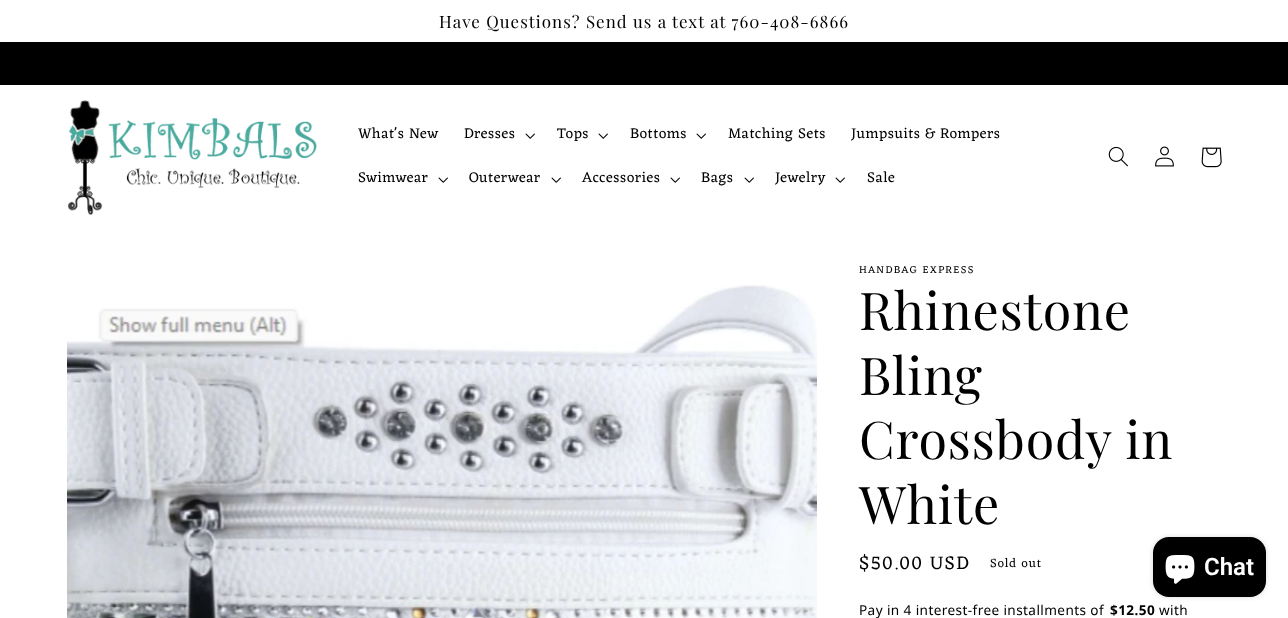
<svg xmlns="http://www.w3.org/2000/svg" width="1288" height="618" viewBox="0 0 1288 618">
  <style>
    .t1 { font: 16.9px Playfair Display; letter-spacing: 1.05px; fill: #000; }
    .t2 { font: 14.75px Eczar; letter-spacing: 0.6px; fill: #000; }
    .t3 { font: 10.5px Eczar; letter-spacing: 1.4px; fill: #000; }
    .t4 { font: 52px Playfair Display; letter-spacing: 0.75px; fill: #000; }
    .t5 { font: 19px Eczar; letter-spacing: 1.4px; fill: #000; }
    .t6 { font: 12.5px Eczar; letter-spacing: 1.05px; fill: #000; }
    .t7 { font: 13.6px Noto Sans; letter-spacing: 0.4px; fill: #000; }
    .t8 { font: bold 13.6px Noto Sans; letter-spacing: 0.4px; fill: #000; }
    .t9 { font: 600 24px Roboto; fill: #fff; }
  </style>
  <rect width="100%" height="100%" fill="#fff"/>
  <text x="439" y="28" class="t1">Have Questions? Send us a text at 760-408-6866</text>
  <rect x="0" y="42" width="1288" height="43" fill="#000"/>
  <image x="67" y="100" width="250" height="115" href="images/1.png"/>
  <text x="358" y="138" class="t2">What's New</text>
  <text x="464" y="138" class="t2">Dresses</text>
  <image x="525" y="133" width="10" height="6" href="images/2.png"/>
  <text x="557" y="138" class="t2">Tops</text>
  <image x="598" y="133" width="10" height="6" href="images/2.png"/>
  <text x="630" y="138" class="t2">Bottoms</text>
  <image x="696" y="133" width="10" height="6" href="images/2.png"/>
  <text x="728" y="138" class="t2">Matching Sets</text>
  <text x="851" y="138" class="t2">Jumpsuits &amp; Rompers</text>
  <text x="358" y="182" class="t2">Swimwear</text>
  <image x="438" y="177" width="10" height="6" href="images/2.png"/>
  <text x="469" y="182" class="t2">Outerwear</text>
  <image x="551" y="177" width="10" height="6" href="images/2.png"/>
  <text x="582" y="182" class="t2">Accessories</text>
  <image x="670" y="177" width="10" height="6" href="images/2.png"/>
  <text x="701" y="182" class="t2">Bags</text>
  <image x="744" y="177" width="10" height="6" href="images/2.png"/>
  <text x="775" y="182" class="t2">Jewelry</text>
  <image x="835" y="177" width="10" height="6" href="images/2.png"/>
  <text x="867" y="182" class="t2">Sale</text>
  <image x="1108" y="146" width="20" height="21" href="images/3.png"/>
  <image x="1155" y="146" width="19" height="21" href="images/4.png"/>
  <image x="1201" y="147" width="21" height="21" href="images/5.png"/>
  <image x="67" y="285" width="750" height="333" href="images/6.png"/>
  <text x="859" y="273" class="t3">HANDBAG EXPRESS</text>
  <text x="859" y="330" class="t4">Rhinestone</text>
  <text x="859" y="395" class="t4">Bling</text>
  <text x="859" y="459" class="t4">Crossbody in</text>
  <text x="859" y="524" class="t4">White</text>
  <text x="859" y="569" class="t5">$50.00 USD</text>
  <text x="990" y="567" class="t6">Sold out</text>
  <text x="859" y="615" class="t7">Pay in 4 interest-free installments of</text>
  <text x="1110" y="615" class="t8">$12.50</text>
  <text x="1159" y="615" class="t7">with</text>
  <rect x="1153" y="537" width="113" height="60" rx="16" fill="#00000026" filter="blur(2.5px)"/>
  <rect x="1153" y="537" width="113" height="60" rx="16" fill="#000"/>
  <image x="1165" y="555" width="30" height="29" href="images/7.png"/>
  <text x="1204" y="575" class="t9">Chat</text>
</svg>
